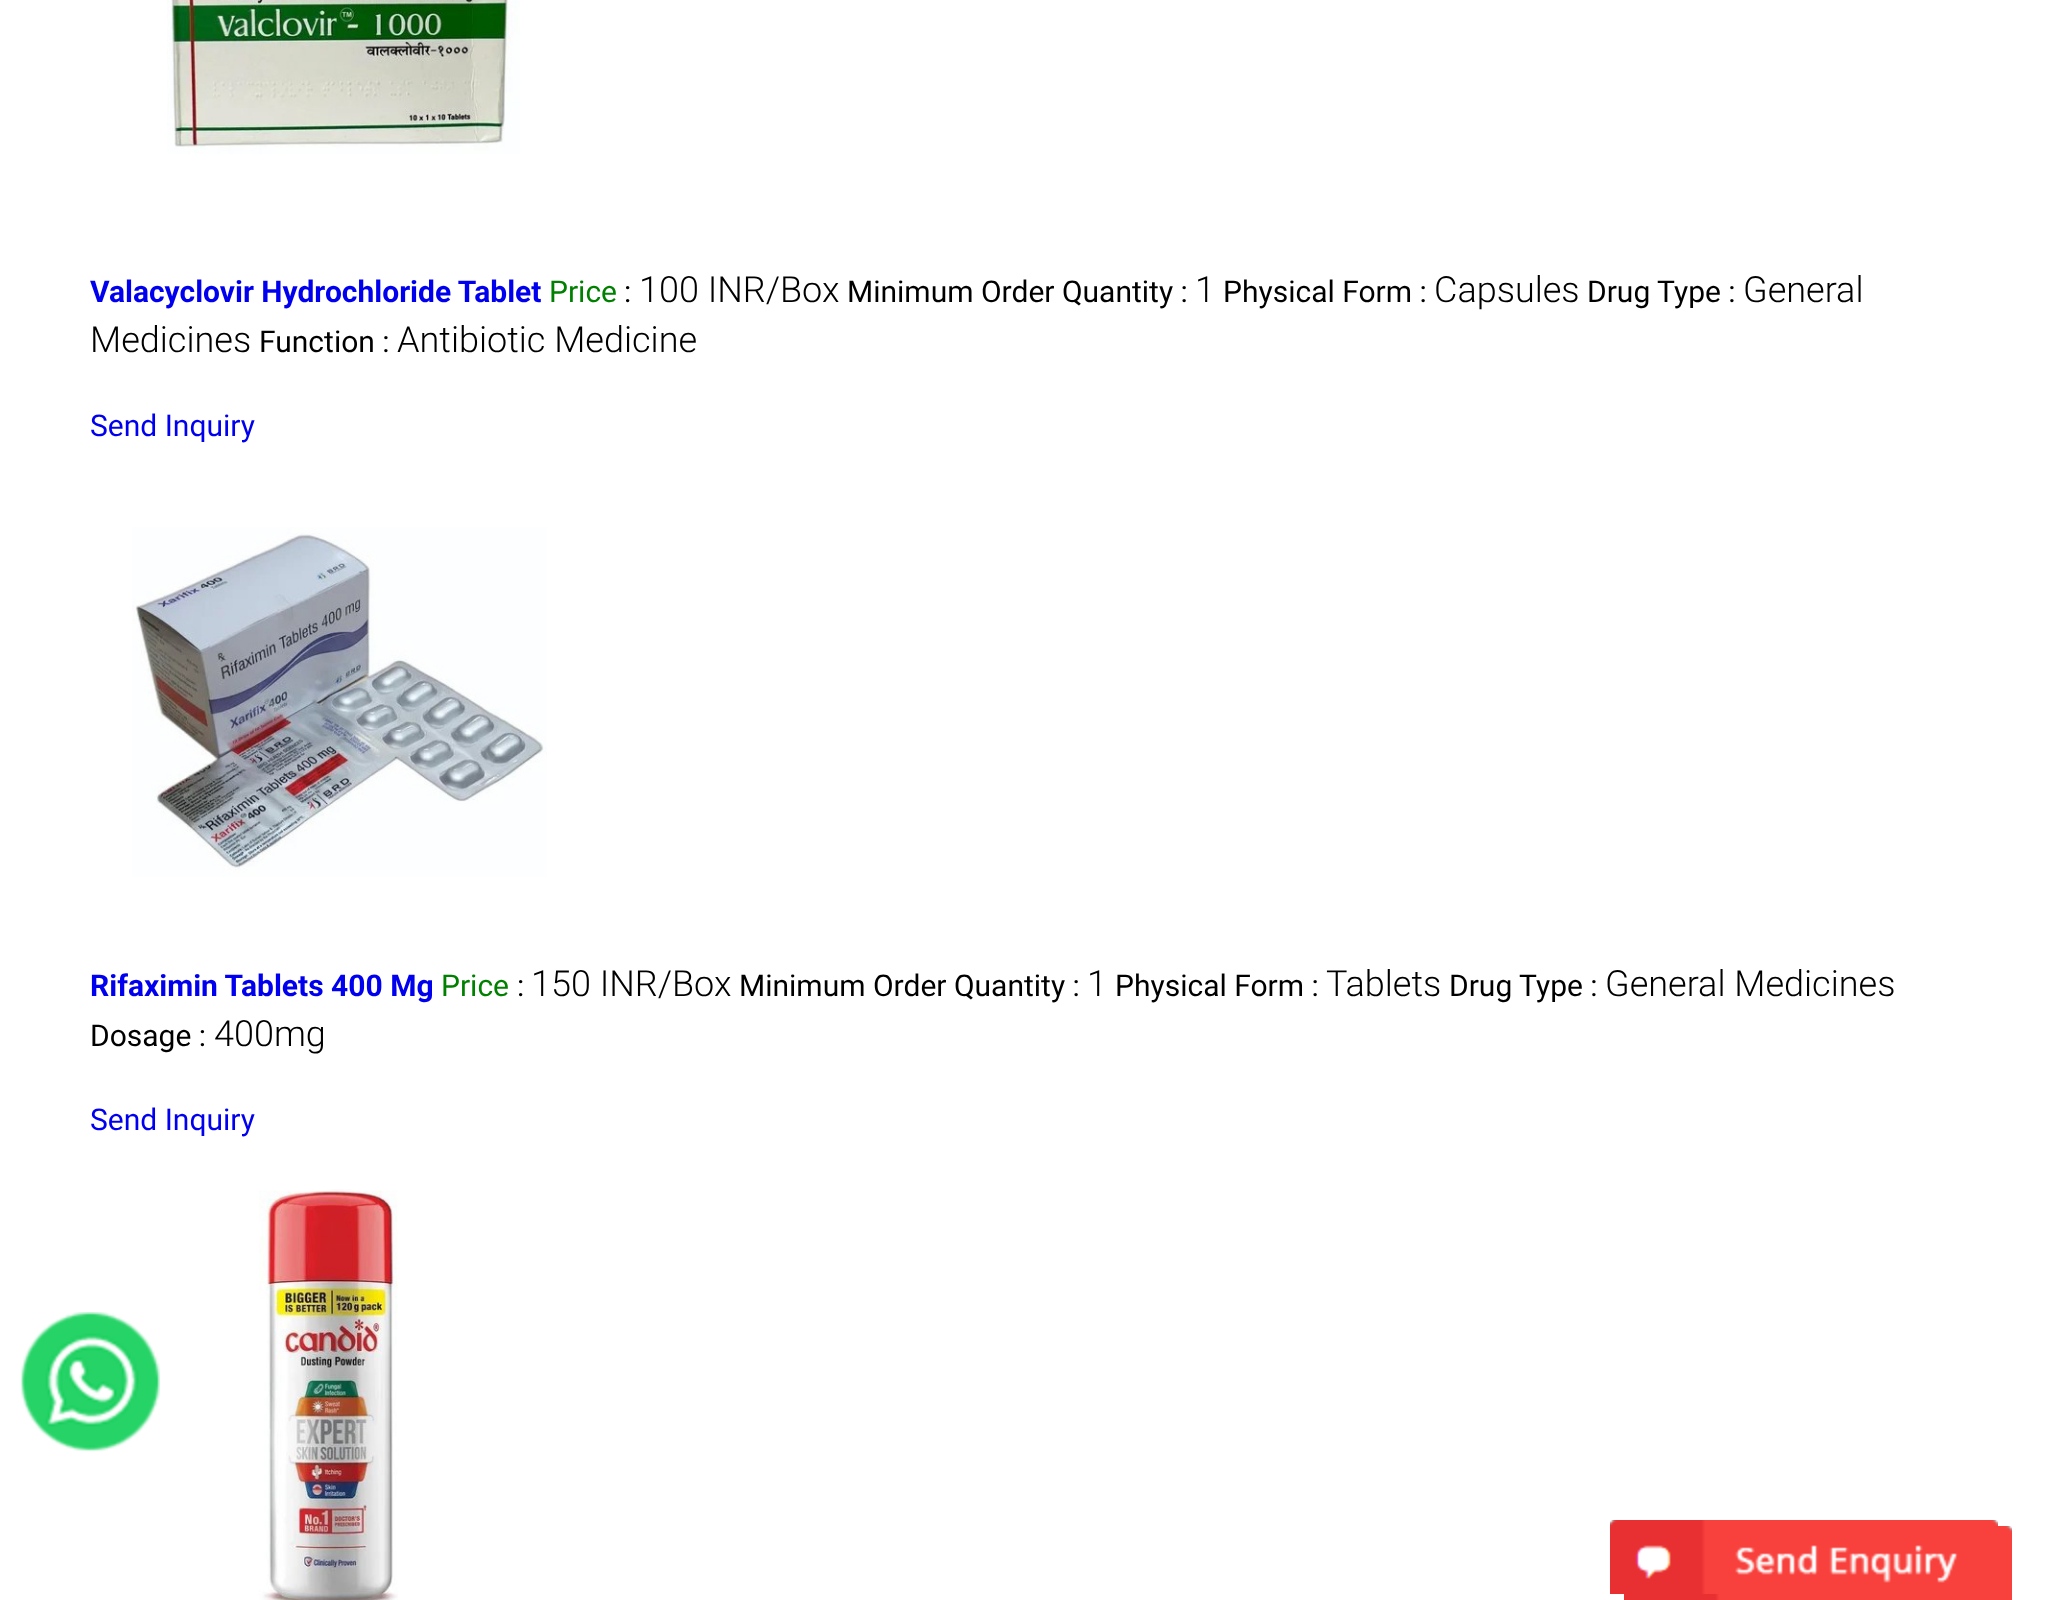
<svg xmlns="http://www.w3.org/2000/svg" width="2052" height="1600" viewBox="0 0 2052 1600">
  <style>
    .t1 { font: bold 30px Roboto; fill: #00e; }
    .t2 { font: 30px Roboto; fill: #008000; }
    .t3 { font: 30px Roboto; fill: #000; }
    .t4 { font: 300 36px Roboto; fill: #000; }
    .t5 { font: 30px Roboto; fill: #00e; }
  </style>
  <rect width="100%" height="100%" fill="#fff"/>
  <image x="167" y="0" width="353" height="154" href="images/1.png"/>
  <text x="90" y="302" class="t1">Valacyclovir Hydrochloride Tablet</text>
  <text x="549" y="302" class="t2">Price</text>
  <text x="624" y="302" class="t3">:</text>
  <text x="639" y="302" class="t4">100 INR/Box</text>
  <text x="847" y="302" class="t3">Minimum Order Quantity :</text>
  <text x="1195" y="302" class="t4">1</text>
  <text x="1223" y="302" class="t3">Physical Form :</text>
  <text x="1434" y="302" class="t4">Capsules</text>
  <text x="1587" y="302" class="t3">Drug Type :</text>
  <text x="1743" y="302" class="t4">General</text>
  <text x="90" y="352" class="t4">Medicines</text>
  <text x="259" y="352" class="t3">Function :</text>
  <text x="397" y="352" class="t4">Antibiotic Medicine</text>
  <text x="90" y="436" class="t5">Send Inquiry</text>
  <image x="132" y="527" width="415" height="350" href="images/2.png"/>
  <text x="90" y="996" class="t1">Rifaximin Tablets 400 Mg</text>
  <text x="441" y="996" class="t2">Price</text>
  <text x="517" y="996" class="t3">:</text>
  <text x="531" y="996" class="t4">150 INR/Box</text>
  <text x="739" y="996" class="t3">Minimum Order Quantity :</text>
  <text x="1087" y="996" class="t4">1</text>
  <text x="1115" y="996" class="t3">Physical Form :</text>
  <text x="1326" y="996" class="t4">Tablets</text>
  <text x="1449" y="996" class="t3">Drug Type :</text>
  <text x="1605" y="996" class="t4">General Medicines</text>
  <text x="90" y="1046" class="t3">Dosage :</text>
  <text x="214" y="1046" class="t4">400mg</text>
  <text x="90" y="1130" class="t5">Send Inquiry</text>
  <image x="259" y="1189" width="139" height="411" href="images/3.png"/>
  <image x="1624" y="1526" width="388" height="74" href="images/4.png"/>
  <image x="20" y="1312" width="140" height="140" href="images/5.png"/>
  <image x="1610" y="1520" width="388" height="74" href="images/6.png"/>
</svg>
